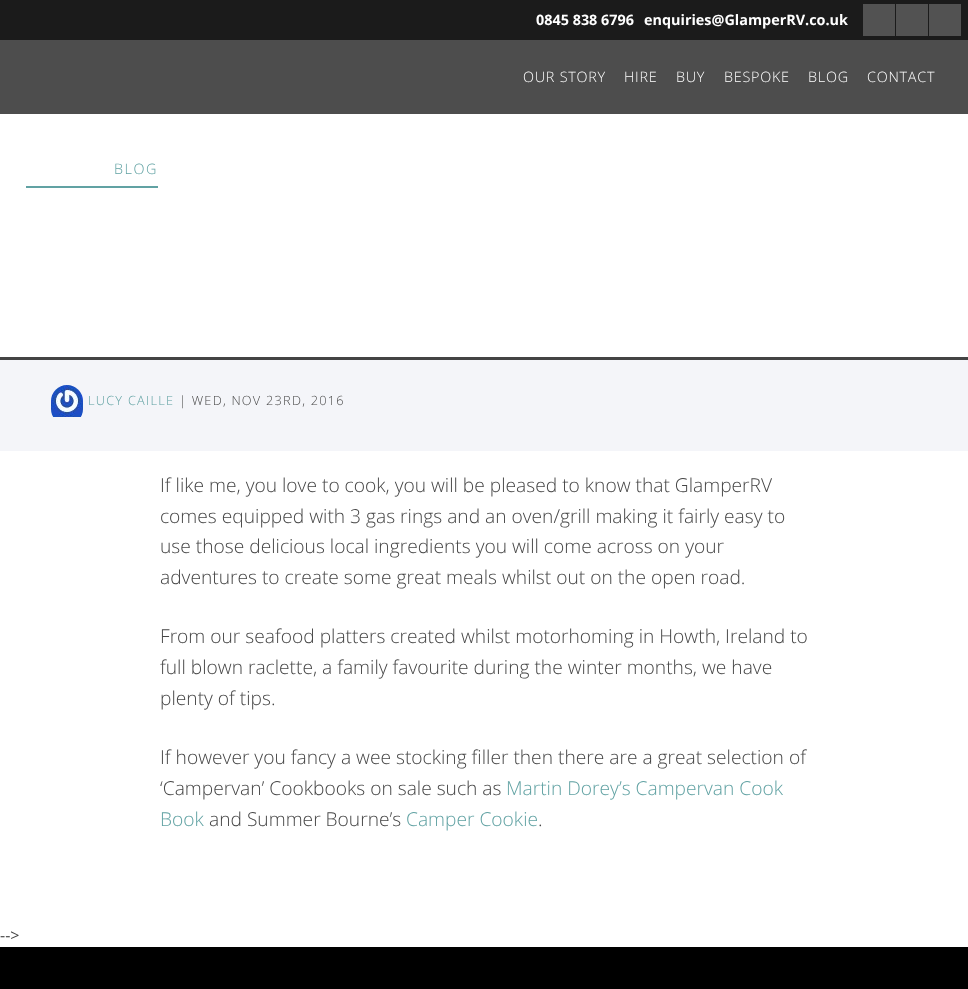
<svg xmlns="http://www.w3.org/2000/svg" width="968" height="989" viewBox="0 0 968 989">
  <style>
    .t1 { font: bold 14.4px Open Sans; fill: #fff; }
    .t2 { font: 300 14.4px Open Sans; letter-spacing: 0.75px; fill: #fff; }
    .t3 { font: 300 14.4px Open Sans; letter-spacing: 1.5px; fill: #61a2a3; }
    .t4 { font: 300 12.75px Open Sans; letter-spacing: 1.25px; fill: #61a2a3; }
    .t5 { font: 300 12.75px Open Sans; letter-spacing: 1.25px; fill: #464646; }
    .t6 { font: 300 19.2px Open Sans; fill: #464646; }
    .t7 { font: 300 19.2px Open Sans; fill: #61a2a3; }
    .t8 { font: 16px Open Sans; fill: #464646; }
  </style>
  <rect width="100%" height="100%" fill="#fff"/>
  <rect x="0" y="0" width="968" height="40" fill="#1b1b1b"/>
  <text x="536" y="25" class="t1">0845 838 6796</text>
  <text x="644" y="25" class="t1">enquiries@GlamperRV.co.uk</text>
  <rect x="863" y="4" width="32" height="32" fill="#525252"/>
  <rect x="896" y="4" width="32" height="32" fill="#525252"/>
  <rect x="929" y="4" width="32" height="32" fill="#525252"/>
  <rect x="0" y="40" width="968" height="74" fill="#4d4d4d"/>
  <text x="523" y="82" class="t2">OUR STORY</text>
  <text x="624" y="82" class="t2">HIRE</text>
  <text x="676" y="82" class="t2">BUY</text>
  <text x="724" y="82" class="t2">BESPOKE</text>
  <text x="808" y="82" class="t2">BLOG</text>
  <text x="867" y="82" class="t2">CONTACT</text>
  <rect x="0" y="357" width="968" height="3" fill="#444"/>
  <rect x="26" y="186" width="132" height="2" fill="#61a2a3"/>
  <text x="114" y="174" class="t3">BLOG</text>
  <rect x="0" y="360" width="968" height="91" fill="#f4f5f9"/>
  <image x="51" y="385" width="32" height="32" href="images/1.png"/>
  <text x="88" y="405" class="t4">LUCY CAILLE</text>
  <text x="179" y="405" class="t5">| WED, NOV 23RD, 2016</text>
  <text x="160" y="492" class="t6">If like me, you love to cook, you will be pleased to know that GlamperRV</text>
  <text x="160" y="523" class="t6">comes equipped with 3 gas rings and an oven/grill making it fairly easy to</text>
  <text x="160" y="553" class="t6">use those delicious local ingredients you will come across on your</text>
  <text x="160" y="584" class="t6">adventures to create some great meals whilst out on the open road.</text>
  <text x="160" y="643" class="t6">From our seafood platters created whilst motorhoming in Howth, Ireland to</text>
  <text x="160" y="674" class="t6">full blown raclette, a family favourite during the winter months, we have</text>
  <text x="160" y="705" class="t6">plenty of tips.</text>
  <text x="160" y="764" class="t6">If however you fancy a wee stocking filler then there are a great selection of</text>
  <text x="160" y="795" class="t6">‘Campervan’ Cookbooks on sale such as</text>
  <text x="506" y="795" class="t7">Martin Dorey’s Campervan Cook</text>
  <text x="160" y="826" class="t7">Book</text>
  <text x="209" y="826" class="t6">and Summer Bourne’s</text>
  <text x="406" y="826" class="t7">Camper Cookie</text>
  <text x="538" y="826" class="t6">.</text>
  <text x="0" y="941" class="t8">--&gt;</text>
  <rect x="0" y="947" width="968" height="42" fill="#000"/>
</svg>
